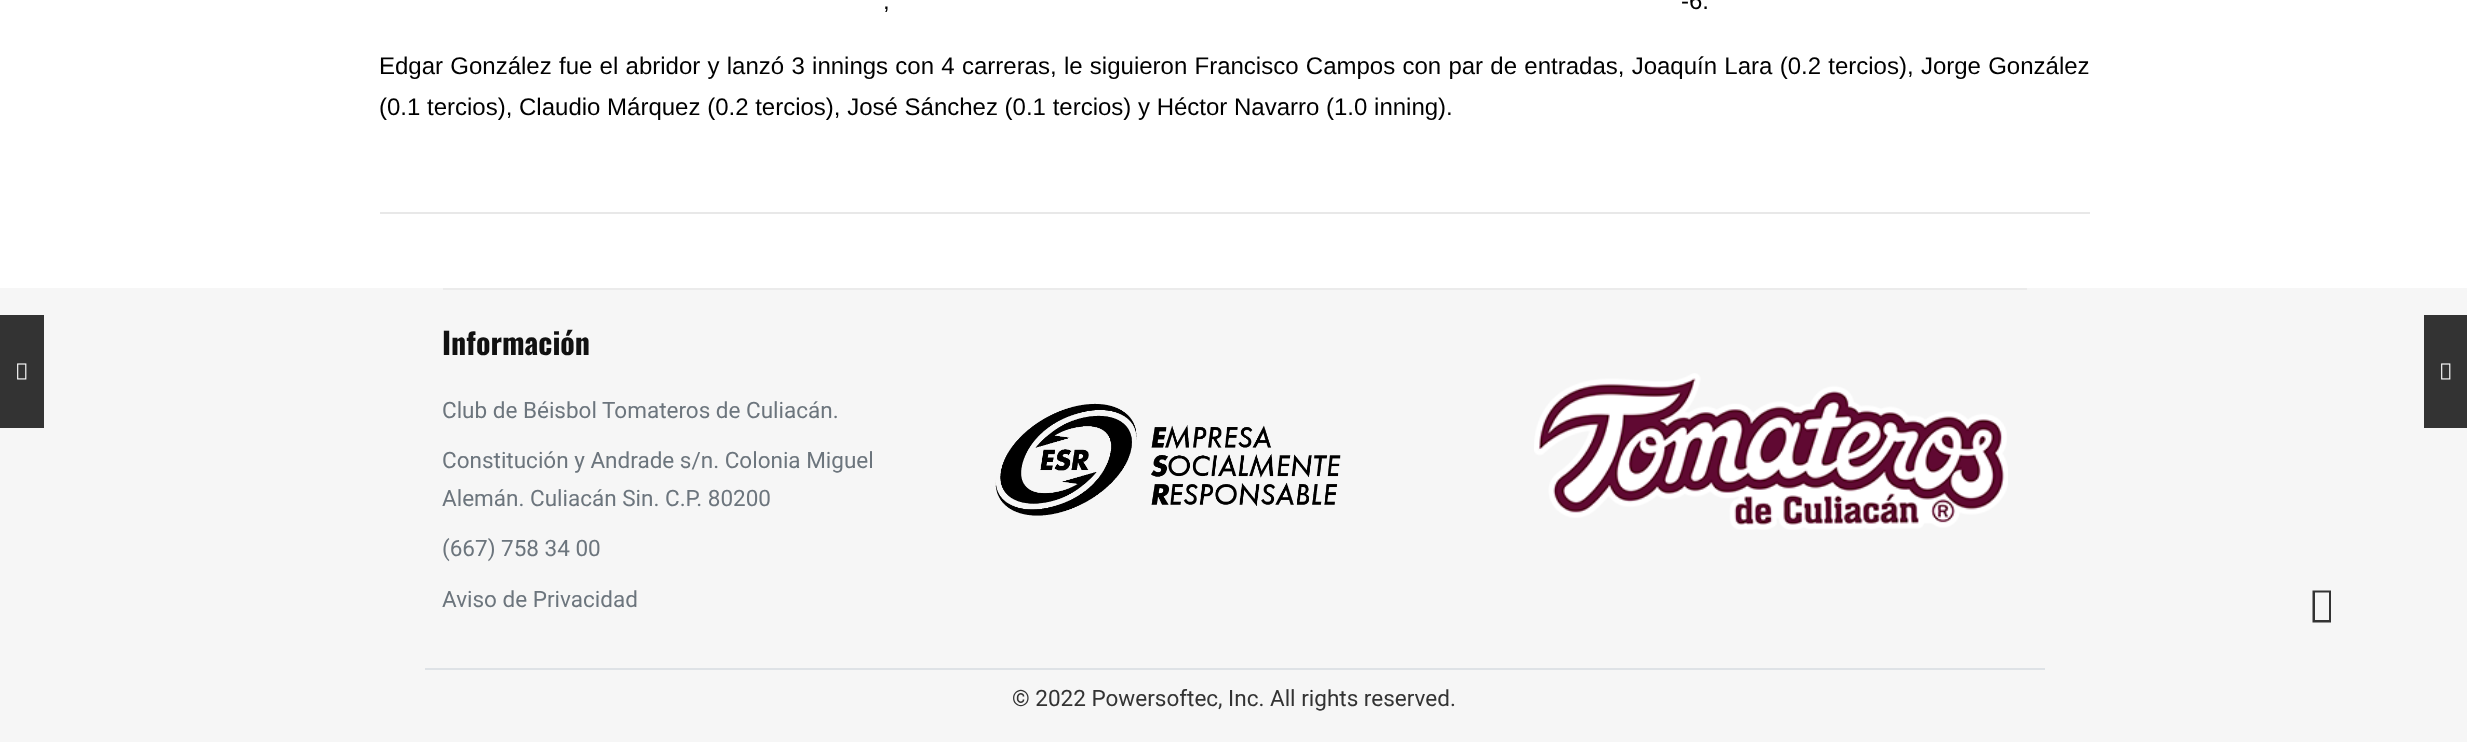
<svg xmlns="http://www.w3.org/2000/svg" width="2467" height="742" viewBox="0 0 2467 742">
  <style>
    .t1 { font: 24px Liberation Sans; fill: #000; }
    .t2 { font: bold 30px Oswald; fill: #111; }
    .t3 { font: 22.5px Roboto; fill: #6c757d; }
    .t4 { font: 22.5px Roboto; fill: #333; }
  </style>
  <rect width="100%" height="100%" fill="#fff"/>
  <text x="883" y="9" class="t1">,</text>
  <text x="1681" y="9" class="t1">-6.</text>
  <text x="379" y="74" word-spacing="0.6" class="t1">Edgar González fue el abridor y lanzó 3 innings con 4 carreras, le siguieron Francisco Campos con par de entradas, Joaquín Lara (0.2 tercios), Jorge González</text>
  <text x="379" y="115" class="t1">(0.1 tercios), Claudio Márquez (0.2 tercios), José Sánchez (0.1 tercios) y Héctor Navarro (1.0 inning).</text>
  <rect x="380" y="212" width="1710" height="2" fill="#e8e8e8"/>
  <rect x="0" y="288" width="2467" height="454" fill="#f6f6f6"/>
  <rect x="0" y="315" width="44" height="113" fill="#333"/>
  <image x="17" y="363" width="10" height="17" href="images/1.png"/>
  <rect x="2424" y="315" width="43" height="113" fill="#333"/>
  <image x="2441" y="363" width="10" height="17" href="images/1.png"/>
  <rect x="443" y="288" width="1584" height="2" fill="#ebebeb"/>
  <text x="442" y="355" class="t2">Información</text>
  <text x="442" y="418" class="t3">Club de Béisbol</text>
  <text x="602" y="418" class="t3">Tomateros de Culiacán.</text>
  <text x="442" y="468" class="t3">Constitución y Andrade s/n. Colonia Miguel</text>
  <text x="442" y="506" class="t3">Alemán. Culiacán Sin. C.P. 80200</text>
  <text x="442" y="556" class="t3">(667) 758 34 00</text>
  <text x="442" y="607" class="t3">Aviso de Privacidad</text>
  <image x="995" y="403" width="346" height="113" href="images/2.png"/>
  <image x="1534" y="373" width="474" height="157" href="images/3.png"/>
  <rect x="425" y="668" width="1620" height="2" fill="#dee2e6"/>
  <text x="1012" y="706" class="t4">© 2022 Powersoftec, Inc. All rights reserved.</text>
  <path d="M2312.5 622.5V590.5H2331V622.5ZM2315 620H2329V592.5H2315Z" fill="#333"/>
</svg>
